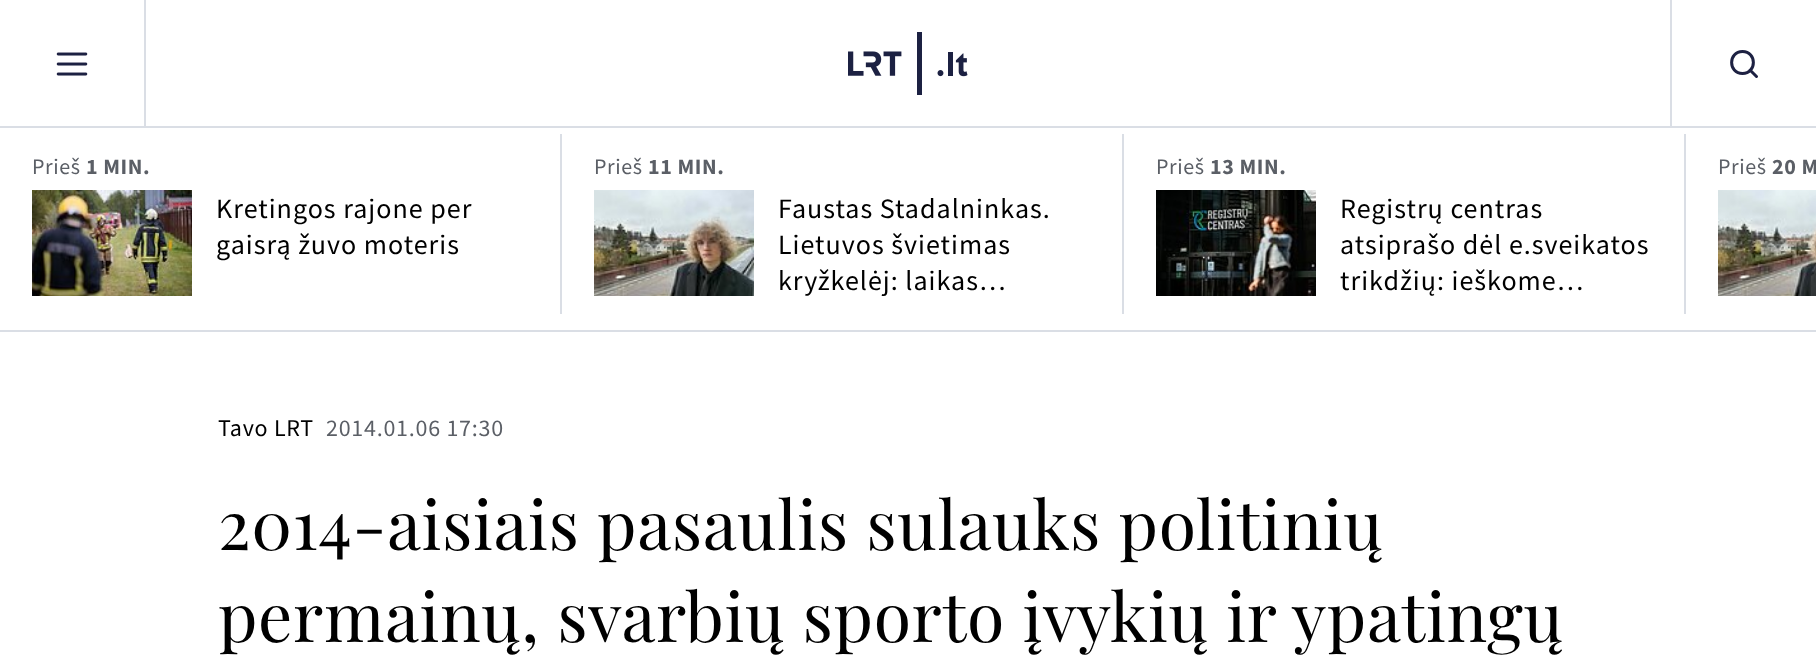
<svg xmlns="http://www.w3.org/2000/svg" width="1816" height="666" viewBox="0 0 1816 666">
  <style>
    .t1 { font: 22px Source Sans Pro; letter-spacing: 0.6px; fill: #5b5f66; }
    .t2 { font: bold 22px Source Sans Pro; letter-spacing: 0.6px; fill: #5b5f66; }
    .t3 { font: 28px Source Sans Pro; letter-spacing: 1px; fill: #000; }
    .t4 { font: 24px Source Sans Pro; letter-spacing: 0.75px; fill: #000; }
    .t5 { font: 24px Source Sans Pro; letter-spacing: 0.75px; fill: #5b5f66; }
    .t6 { font: 68px Playfair Display; letter-spacing: 0.6px; fill: #000; }
  </style>
  <rect width="100%" height="100%" fill="#fff"/>
  <rect x="0" y="126" width="1816" height="2" fill="#dadee5"/>
  <rect x="144" y="0" width="2" height="126" fill="#dadee5"/>
  <image x="56" y="52" width="32" height="24" href="images/1.png"/>
  <image x="848" y="32" width="120" height="63" href="images/2.png"/>
  <rect x="1670" y="0" width="2" height="126" fill="#dadee5"/>
  <path d="M1742.5 73.5C1757 73.5 1757 51.5 1742.5 51.5C1728 51.5 1728 73.5 1742.5 73.5ZM1750 70L1756.5 76.5" fill="none" stroke="#1d2142" stroke-width="3" stroke-linecap="round" stroke-linejoin="round"/>
  <rect x="0" y="330" width="1816" height="2" fill="#dadee5"/>
  <text x="32" y="174" class="t1">Prieš</text>
  <text x="86" y="174" class="t2">1 MIN.</text>
  <text x="216" y="218" class="t3">Kretingos rajone per</text>
  <text x="216" y="254" class="t3">gaisrą žuvo moteris</text>
  <image x="32" y="190" width="160" height="106" href="images/3.png"/>
  <rect x="560" y="134" width="2" height="180" fill="#dadee5"/>
  <text x="594" y="174" class="t1">Prieš</text>
  <text x="648" y="174" class="t2">11 MIN.</text>
  <text x="778" y="218" class="t3">Faustas Stadalninkas.</text>
  <text x="778" y="254" class="t3">Lietuvos švietimas</text>
  <text x="778" y="290" class="t3">kryžkelėj: laikas…</text>
  <image x="594" y="190" width="160" height="106" href="images/4.png"/>
  <rect x="1122" y="134" width="2" height="180" fill="#dadee5"/>
  <text x="1156" y="174" class="t1">Prieš</text>
  <text x="1210" y="174" class="t2">13 MIN.</text>
  <text x="1340" y="218" class="t3">Registrų centras</text>
  <text x="1340" y="254" class="t3">atsiprašo dėl e.sveikatos</text>
  <text x="1340" y="290" class="t3">trikdžių: ieškome…</text>
  <image x="1156" y="190" width="160" height="106" href="images/5.png"/>
  <rect x="1684" y="134" width="2" height="180" fill="#dadee5"/>
  <text x="1718" y="174" class="t1">Prieš</text>
  <text x="1772" y="174" class="t2">20 M</text>
  <image x="1718" y="190" width="98" height="106" href="images/6.png"/>
  <text x="218" y="436" class="t4">Tavo LRT</text>
  <text x="326" y="436" class="t5">2014.01.06 17:30</text>
  <text x="218" y="550" class="t6">2014-aisiais pasaulis sulauks politinių</text>
  <text x="218" y="642" class="t6">permainų, svarbių sporto įvykių ir ypatingų</text>
</svg>
